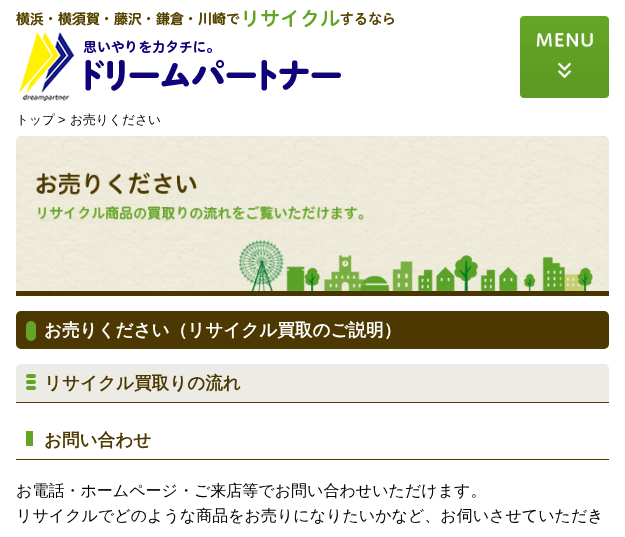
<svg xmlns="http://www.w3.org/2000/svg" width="625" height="537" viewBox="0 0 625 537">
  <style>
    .t1 { font: 500 12.75px WenQuanYi Zen Hei; fill: #000; }
    .t2 { font: 12.75px Liberation Sans; fill: #000; }
    .t3 { font: bold 17.6px WenQuanYi Zen Hei; fill: #fff; }
    .t4 { font: bold 17.6px WenQuanYi Zen Hei; fill: #4c3800; }
    .t5 { font: 500 16px WenQuanYi Zen Hei; fill: #000; }
  </style>
  <rect width="100%" height="100%" fill="#fff"/>
  <image x="16" y="9" width="378" height="18" href="images/1.png"/>
  <image x="18" y="32" width="323" height="69" href="images/2.png"/>
  <image x="520" y="16" width="89" height="82" href="images/3.png"/>
  <text x="16" y="124" class="t1">トップ</text>
  <text x="58" y="124" class="t2">&gt;</text>
  <text x="70" y="124" class="t1">お売りください</text>
  <image x="16" y="136" width="593" height="155" href="images/4.png"/>
  <rect x="16" y="291" width="593" height="5" fill="#4a3600"/>
  <image x="31" y="171" width="365" height="52" href="images/5.png"/>
  <image x="239" y="233" width="355" height="58" href="images/6.png"/>
  <rect x="16" y="311" width="593" height="38" rx="5" fill="#4c3800"/>
  <image x="26" y="321" width="10" height="20" href="images/7.png"/>
  <text x="44" y="336" class="t3">お売りください（リサイクル買取のご説明）</text>
  <path d="M21 364H604C607 364 609 366 609 369V403H16V369C16 366 18 364 21 364Z" fill="#edebe5"/>
  <image x="26" y="374" width="10" height="16" href="images/8.png"/>
  <rect x="16" y="402" width="593" height="1" fill="#4c3800"/>
  <text x="44" y="389" class="t4">リサイクル買取りの流れ</text>
  <rect x="26" y="431" width="7" height="15" fill="#64a526"/>
  <rect x="16" y="459" width="593" height="1" fill="#4c3800"/>
  <text x="44" y="446" class="t4">お問い合わせ</text>
  <text x="16" y="496" class="t5">お電話・ホームページ・ご来店等でお問い合わせいただけます。</text>
  <text x="16" y="521" class="t5">リサイクルでどのような商品をお売りになりたいかなど、お伺いさせていただき</text>
</svg>
